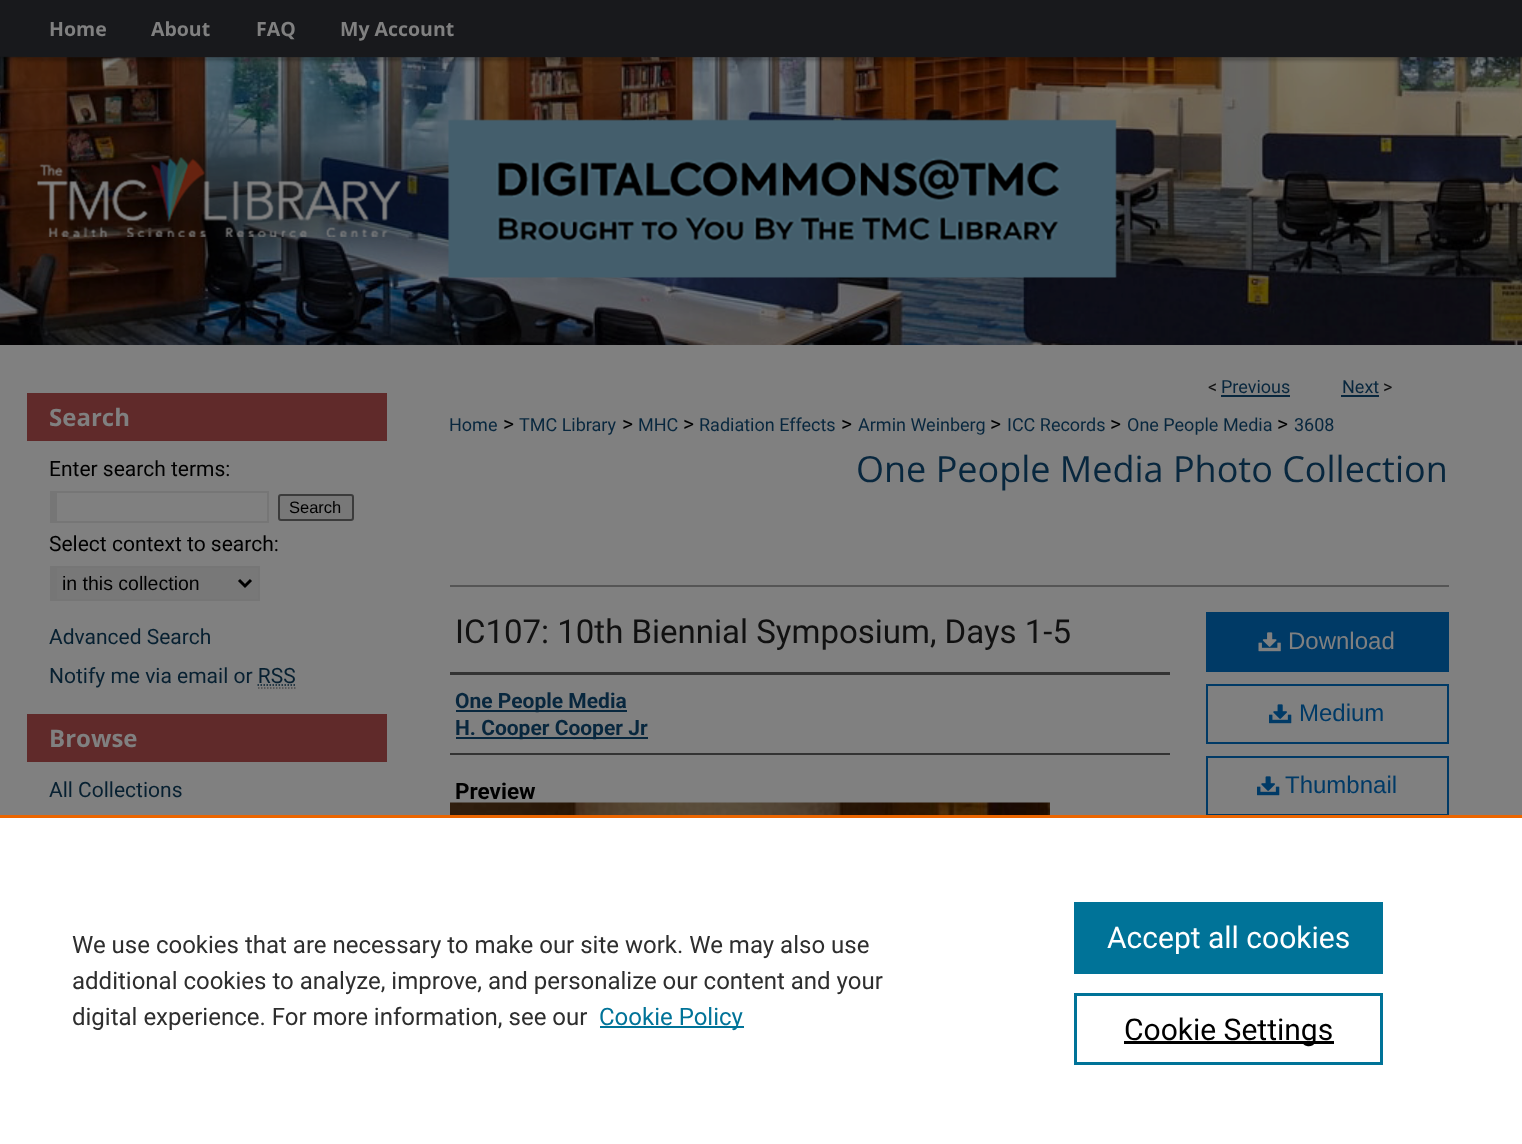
<svg xmlns="http://www.w3.org/2000/svg" width="1522" height="1144" viewBox="0 0 1522 1144">
  <style>
    .t1 { font: bold 19.5px Open Sans; fill: #808080; }
    .t2 { font: bold 24px Open Sans; fill: #808080; }
    .t3 { font: 21px Roboto; fill: #000; }
    .t4 { font: 16.5px Liberation Sans; fill: #000; }
    .t5 { font: 19.5px Liberation Sans; fill: #000; }
    .t6 { font: 21px Roboto; fill: #072031; }
    .t7 { font: 18px Roboto; fill: #111; }
    .t8 { font: 18px Roboto; fill: #08273e; }
    .t9 { font: 36px Open Sans; fill: #08273e; }
    .t10 { font: 33px Roboto; fill: #111; }
    .t11 { font: bold 21px Roboto; fill: #08273e; }
    .t12 { font: bold 22.5px Roboto; fill: #000; }
    .t13 { font: 24px Liberation Sans; fill: #808080; }
    .t14 { font: 24px Liberation Sans; fill: #003a66; }
    .t15 { font: 24px Roboto; fill: #2e2e2e; }
    .t16 { font: 24px Roboto; fill: #007398; }
    .t17 { font: 30px Roboto; fill: #fff; }
    .t18 { font: 30px Roboto; fill: #000; }
  </style>
  <rect width="100%" height="100%" fill="#808080"/>
  <image x="0" y="0" width="1522" height="345" href="images/1.png"/>
  <rect x="27" y="56" width="1467" height="1" fill="#18191c"/>
  <text x="49" y="36" class="t1">Home</text>
  <text x="151" y="36" class="t1">About</text>
  <text x="256" y="36" class="t1">FAQ</text>
  <text x="340" y="36" class="t1">My Account</text>
  <image x="27" y="58" width="1470" height="220" href="images/2.png"/>
  <image x="37" y="157" width="364" height="80" href="images/3.png"/>
  <rect x="27" y="393" width="360" height="48" fill="#602a2a"/>
  <text x="49" y="426" class="t2">Search</text>
  <text x="49" y="476" class="t3">Enter search terms:</text>
  <rect x="50" y="491" width="219" height="2" fill="#767676"/>
  <rect x="267" y="491" width="2" height="31" fill="#767676"/>
  <rect x="50" y="521" width="219" height="2" fill="#767676"/>
  <rect x="50" y="491" width="7" height="31" fill="#767676"/>
  <rect x="279" y="495" width="74" height="25" rx="2" fill="#787878" stroke="#3b3b3b" stroke-width="2"/>
  <text x="289" y="513" class="t4">Search</text>
  <text x="49" y="551" class="t3">Select context to search:</text>
  <rect x="57" y="568" width="201" height="31" fill="#787878"/>
  <rect x="50" y="566" width="210" height="2" fill="#767676"/>
  <rect x="258" y="566" width="2" height="34" fill="#767676"/>
  <rect x="50" y="599" width="210" height="2" fill="#767676"/>
  <rect x="50" y="566" width="7" height="34" fill="#767676"/>
  <path d="M239 580L245 586L251 580" fill="none" stroke="#000" stroke-width="3"/>
  <text x="62" y="590" class="t5">in this collection</text>
  <text x="49" y="644" class="t6">Advanced Search</text>
  <text x="49" y="683" class="t6">Notify me via email or RSS</text>
  <path d="M257.5 685H295.5" fill="none" stroke="#072031" stroke-width="1.5" stroke-dasharray="1.5 1.5"/>
  <path d="M258 688H295.5" fill="none" stroke="#4d4d4d" stroke-width="1.5" stroke-dasharray="1.5 1.5"/>
  <rect x="27" y="714" width="360" height="48" fill="#602a2a"/>
  <text x="49" y="747" class="t2">Browse</text>
  <text x="49" y="797" class="t6">All Collections</text>
  <text x="1208" y="393" class="t7">&lt;</text>
  <text x="1221" y="393" class="t8">Previous</text>
  <rect x="1221" y="395" width="69" height="2" fill="#08273e"/>
  <text x="1342" y="393" class="t8">Next</text>
  <rect x="1341" y="395" width="38" height="2" fill="#08273e"/>
  <text x="1383" y="393" class="t7">&gt;</text>
  <text x="449" y="431" class="t8">Home</text>
  <text x="503" y="431" class="t3">&gt;</text>
  <text x="519" y="431" class="t8">TMC Library</text>
  <text x="622" y="431" class="t3">&gt;</text>
  <text x="638" y="431" class="t8">MHC</text>
  <text x="683" y="431" class="t3">&gt;</text>
  <text x="699" y="431" class="t8">Radiation Effects</text>
  <text x="841" y="431" class="t3">&gt;</text>
  <text x="858" y="431" class="t8">Armin Weinberg</text>
  <text x="990" y="431" class="t3">&gt;</text>
  <text x="1007" y="431" class="t8">ICC Records</text>
  <text x="1110" y="431" class="t3">&gt;</text>
  <text x="1127" y="431" class="t8">One People Media</text>
  <text x="1277" y="431" class="t3">&gt;</text>
  <text x="1294" y="431" class="t8">3608</text>
  <text x="856" y="482" class="t9">One People Media Photo Collection</text>
  <rect x="450" y="585" width="999" height="2" fill="#555"/>
  <text x="455" y="643" class="t10">IC107: 10th Biennial Symposium, Days 1-5</text>
  <rect x="450" y="672" width="720" height="3" fill="#333"/>
  <rect x="450" y="753" width="720" height="2" fill="#333"/>
  <rect x="456" y="710" width="171" height="2" fill="#08273e"/>
  <text x="455" y="708" class="t11">One People Media</text>
  <rect x="456" y="737" width="192" height="2" fill="#08273e"/>
  <text x="455" y="735" class="t11">H. Cooper Cooper Jr</text>
  <text x="455" y="799" class="t12">Preview</text>
  <image x="450" y="802" width="600" height="13" href="images/4.png"/>
  <rect x="1206" y="612" width="243" height="60" fill="#003a66"/>
  <image x="1258" y="632" width="23" height="20" href="images/5.png"/>
  <text x="1288" y="649" class="t13">Download</text>
  <rect x="1207" y="685" width="241" height="58" fill="none" stroke="#003a66" stroke-width="2"/>
  <image x="1269" y="704" width="23" height="20" href="images/6.png"/>
  <text x="1299" y="721" class="t14">Medium</text>
  <rect x="1207" y="757" width="241" height="58" fill="none" stroke="#003a66" stroke-width="2"/>
  <image x="1257" y="776" width="23" height="20" href="images/6.png"/>
  <text x="1285" y="793" class="t14">Thumbnail</text>
  <rect x="0" y="818" width="1522" height="326" fill="#fff"/>
  <rect x="0" y="815" width="1522" height="3" fill="#eb6500"/>
  <text x="72" y="953" class="t15">We use cookies that are necessary to make our site work. We may also use</text>
  <text x="72" y="989" class="t15">additional cookies to analyze, improve, and personalize our content and your</text>
  <text x="72" y="1025" class="t15">digital experience. For more information, see our</text>
  <rect x="600" y="1026" width="144" height="2" fill="#007398"/>
  <text x="599" y="1025" class="t16">Cookie Policy</text>
  <rect x="1074" y="902" width="309" height="72" fill="#007398"/>
  <text x="1107" y="948" class="t17">Accept all cookies</text>
  <rect x="1075.5" y="994.5" width="306" height="69" fill="none" stroke="#007398" stroke-width="3"/>
  <rect x="1124" y="1041" width="210" height="3" fill="#000"/>
  <text x="1124" y="1040" class="t18">Cookie Settings</text>
</svg>
